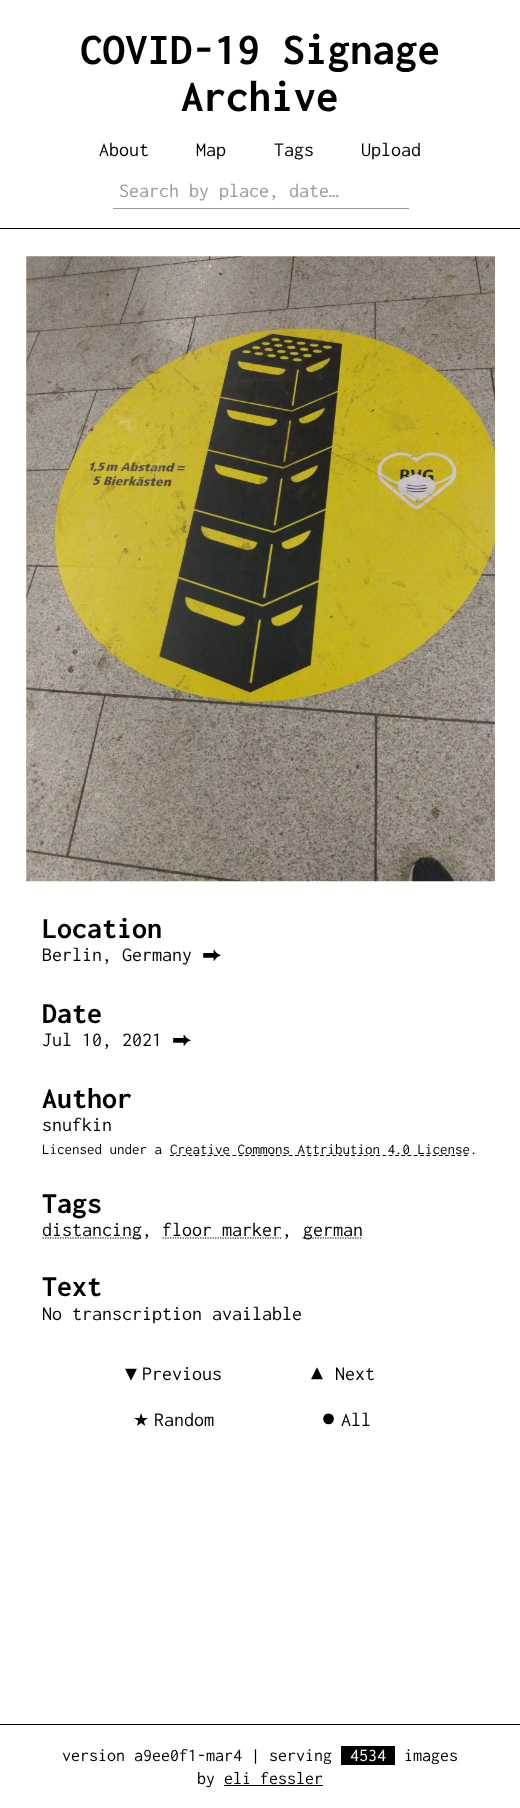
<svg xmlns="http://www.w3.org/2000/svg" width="520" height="1808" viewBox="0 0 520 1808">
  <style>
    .t1 { font: bold 45px Inconsolata; fill: #000; }
    .t2 { font: 20px Inconsolata; fill: #000; }
    .t3 { font: 20px Inconsolata; fill: #999; }
    .t4 { font: bold 30px Inconsolata; fill: #000; }
    .t5 { font: 20px FreeSans; fill: #000; }
    .t6 { font: 15px Inconsolata; fill: #000; }
    .t7 { font: 20px DejaVu Sans Mono; fill: #000; }
    .t8 { font: 18px DejaVu Sans; letter-spacing: 1px; fill: #000; }
    .t9 { font: 25px Liberation Sans; fill: #000; }
    .t10 { font: 18px Inconsolata; fill: #000; }
    .t11 { font: 18px Inconsolata; fill: #fff; }
  </style>
  <rect width="100%" height="100%" fill="#fff"/>
  <rect x="0" y="228" width="520" height="1" fill="#000"/>
  <text x="80" y="64" class="t1">COVID-19 Signage</text>
  <text x="181" y="111" class="t1">Archive</text>
  <text x="99" y="156" class="t2">About</text>
  <text x="196" y="156" class="t2">Map</text>
  <text x="274" y="156" class="t2">Tags</text>
  <text x="361" y="156" class="t2">Upload</text>
  <rect x="113" y="208" width="296" height="1" fill="#999"/>
  <text x="119" y="197" class="t3">Search by place, date…</text>
  <image x="26" y="256" width="469" height="626" href="images/1.png"/>
  <text x="42" y="938" class="t4">Location</text>
  <text x="42" y="961" class="t2">Berlin, Germany</text>
  <text x="202" y="961" class="t5">⮕</text>
  <text x="42" y="1023" class="t4">Date</text>
  <text x="42" y="1046" class="t2">Jul 10, 2021</text>
  <text x="172" y="1046" class="t5">⮕</text>
  <text x="42" y="1108" class="t4">Author</text>
  <text x="42" y="1131" class="t2">snufkin</text>
  <text x="42" y="1154" class="t6">Licensed under a</text>
  <path d="M170 1155.5H470" fill="none" stroke="#000" stroke-width="1.2" stroke-dasharray="3.75 2.5"/>
  <text x="170" y="1154" class="t6">Creative Commons Attribution 4.0 License.</text>
  <text x="42" y="1213" class="t4">Tags</text>
  <path d="M42.5 1238H142.5" fill="none" stroke="#000" stroke-width="1.2" stroke-dasharray="1.25 1.25"/>
  <text x="42" y="1236" class="t2">distancing, floor marker,</text>
  <path d="M302.5 1238H362.5" fill="none" stroke="#000" stroke-width="1.2" stroke-dasharray="1.25 1.25"/>
  <text x="303" y="1236" class="t2">german</text>
  <path d="M162.5 1238H282.5" fill="none" stroke="#000" stroke-width="1.2" stroke-dasharray="1.25 1.25"/>
  <text x="42" y="1296" class="t4">Text</text>
  <text x="42" y="1320" class="t2">No transcription available</text>
  <text x="125" y="1380" class="t7">▼</text>
  <text x="142" y="1380" class="t2">Previous</text>
  <text x="323" y="1368" transform="rotate(180 323 1368)" class="t7">▼</text>
  <text x="335" y="1380" class="t2">Next</text>
  <text x="133" y="1426" class="t8">★</text>
  <text x="154" y="1426" class="t2">Random</text>
  <text x="321" y="1426" class="t9">●</text>
  <text x="341" y="1426" class="t2">All</text>
  <rect x="0" y="1724" width="520" height="1" fill="#000"/>
  <text x="62" y="1761" class="t10">version a9ee0f1-mar4 | serving</text>
  <rect x="341" y="1746" width="54" height="19" fill="#000"/>
  <text x="350" y="1761" class="t11">4534</text>
  <text x="404" y="1761" class="t10">images</text>
  <text x="197" y="1784" class="t10">by eli fessler</text>
  <rect x="224" y="1785" width="99" height="1" fill="#000"/>
</svg>
